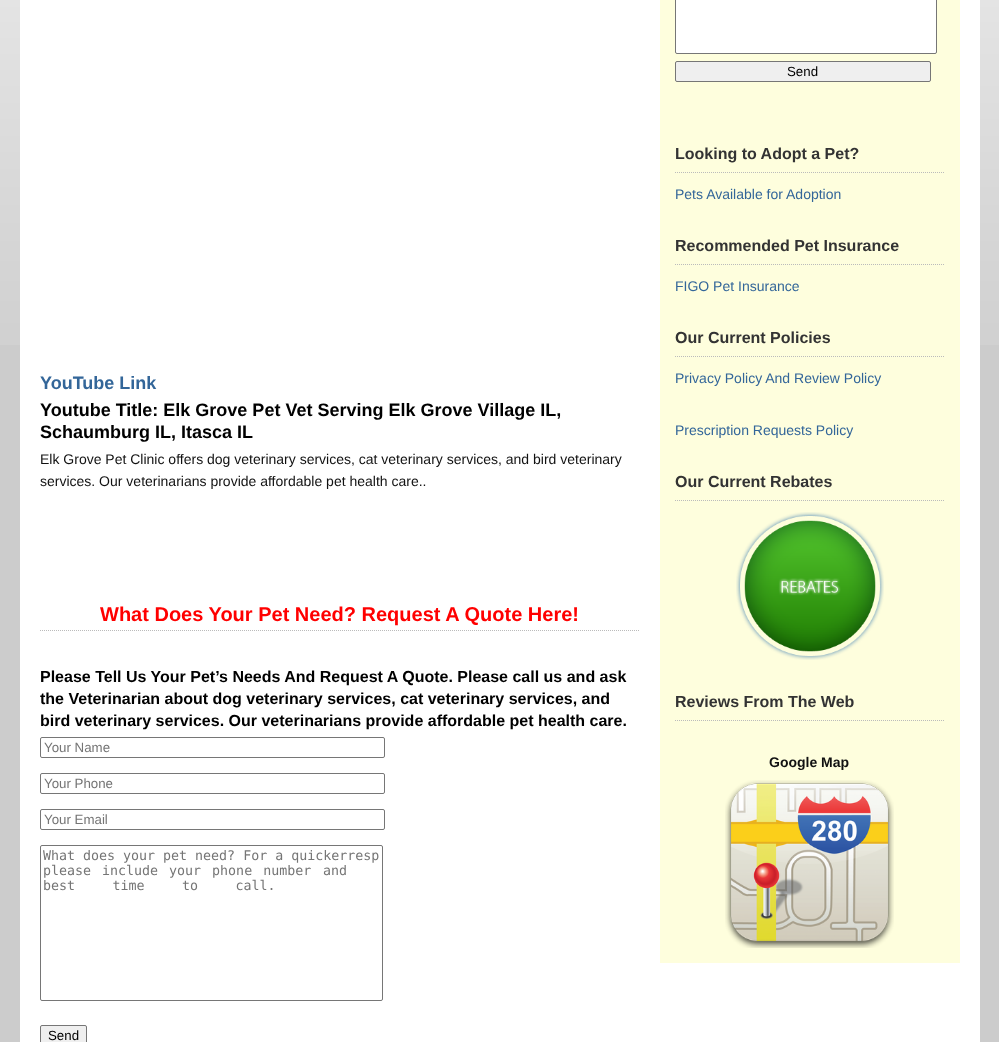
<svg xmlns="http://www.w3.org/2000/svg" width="999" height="1042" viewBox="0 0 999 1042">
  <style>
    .t1 { font: bold 18px Liberation Sans; fill: #369; }
    .t2 { font: bold 18px Liberation Sans; fill: #000; }
    .t3 { font: 14px Liberation Sans; fill: #111; }
    .t4 { font: bold 20px Liberation Sans; fill: #f00; }
    .t5 { font: bold 16px Liberation Sans; fill: #000; }
    .t6 { font: 13.3px Liberation Sans; fill: #757575; }
    .t7 { font: 13.3px DejaVu Sans Mono; fill: #757575; }
    .t8 { font: 13.3px Liberation Sans; fill: #000; }
    .t9 { font: bold 16px Liberation Sans; fill: #333; }
    .t10 { font: 14px Liberation Sans; fill: #369; }
    .t11 { font: bold 14px Liberation Sans; fill: #111; }
  </style>
  <rect width="100%" height="100%" fill="#ccc"/>
  <image x="0" y="0" width="999" height="345" href="images/1.png"/>
  <rect x="20" y="0" width="960" height="1042" fill="#fff"/>
  <text x="40" y="389" class="t1">YouTube Link</text>
  <text x="40" y="416" class="t2">Youtube Title: Elk Grove Pet Vet Serving Elk Grove Village IL,</text>
  <text x="40" y="438" class="t2">Schaumburg IL, Itasca IL</text>
  <text x="40" y="464" class="t3">Elk Grove Pet Clinic offers dog veterinary services, cat veterinary services, and bird veterinary</text>
  <text x="40" y="486" class="t3">services. Our veterinarians provide affordable pet health care..</text>
  <path d="M40 630.5H640" fill="none" stroke="#bbb" stroke-dasharray="1 1"/>
  <text x="100" y="621" class="t4">What Does Your Pet Need? Request A Quote Here!</text>
  <text x="40" y="682" class="t5">Please Tell Us Your Pet’s Needs And Request A Quote. Please call us and ask</text>
  <text x="40" y="704" class="t5">the Veterinarian about dog veterinary services, cat veterinary services, and</text>
  <text x="40" y="726" class="t5">bird veterinary services. Our veterinarians provide affordable pet health care.</text>
  <rect x="40.5" y="737.5" width="344" height="20" rx="1.5" fill="none" stroke="#767676"/>
  <text x="44" y="752" class="t6">Your Name</text>
  <rect x="40.5" y="773.5" width="344" height="20" rx="1.5" fill="none" stroke="#767676"/>
  <text x="44" y="788" class="t6">Your Phone</text>
  <rect x="40.5" y="809.5" width="344" height="20" rx="1.5" fill="none" stroke="#767676"/>
  <text x="44" y="824" class="t6">Your Email</text>
  <rect x="40.5" y="845.5" width="342" height="155" rx="1.5" fill="none" stroke="#767676"/>
  <text x="43" y="860" class="t7">What does your pet need? For a quickerresp</text>
  <text x="43" y="875" word-spacing="3" class="t7">please include your phone number</text>
  <text x="323" y="875" class="t7">and</text>
  <text x="43" y="890" word-spacing="29.5" class="t7">best time to call.</text>
  <rect x="40.5" y="1025.5" width="46" height="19" rx="1.5" fill="#efefef" stroke="#767676"/>
  <text x="48" y="1040" class="t8">Send</text>
  <rect x="660" y="0" width="300" height="963" fill="#fefedd"/>
  <rect x="675.5" y="-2.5" width="261" height="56" rx="1.5" fill="#fff" stroke="#767676"/>
  <rect x="675.5" y="61.5" width="255" height="20" rx="1.5" fill="#efefef" stroke="#767676"/>
  <text x="787" y="76" class="t8">Send</text>
  <path d="M675 172.5H945" fill="none" stroke="#bbb" stroke-dasharray="1 1"/>
  <text x="675" y="159" class="t9">Looking to Adopt a Pet?</text>
  <text x="675" y="199" class="t10">Pets Available for Adoption</text>
  <path d="M675 264.5H945" fill="none" stroke="#bbb" stroke-dasharray="1 1"/>
  <text x="675" y="251" class="t9">Recommended Pet Insurance</text>
  <text x="675" y="291" class="t10">FIGO Pet Insurance</text>
  <path d="M675 356.5H945" fill="none" stroke="#bbb" stroke-dasharray="1 1"/>
  <text x="675" y="343" class="t9">Our Current Policies</text>
  <text x="675" y="383" class="t10">Privacy Policy And Review Policy</text>
  <text x="675" y="435" class="t10">Prescription Requests Policy</text>
  <path d="M675 500.5H945" fill="none" stroke="#bbb" stroke-dasharray="1 1"/>
  <text x="675" y="487" class="t9">Our Current Rebates</text>
  <image x="736" y="512" width="148" height="148" href="images/2.png"/>
  <path d="M675 720.5H945" fill="none" stroke="#bbb" stroke-dasharray="1 1"/>
  <text x="675" y="707" class="t9">Reviews From The Web</text>
  <text x="769" y="767" class="t11">Google Map</text>
  <image x="725" y="780" width="169" height="168" href="images/3.png"/>
</svg>
